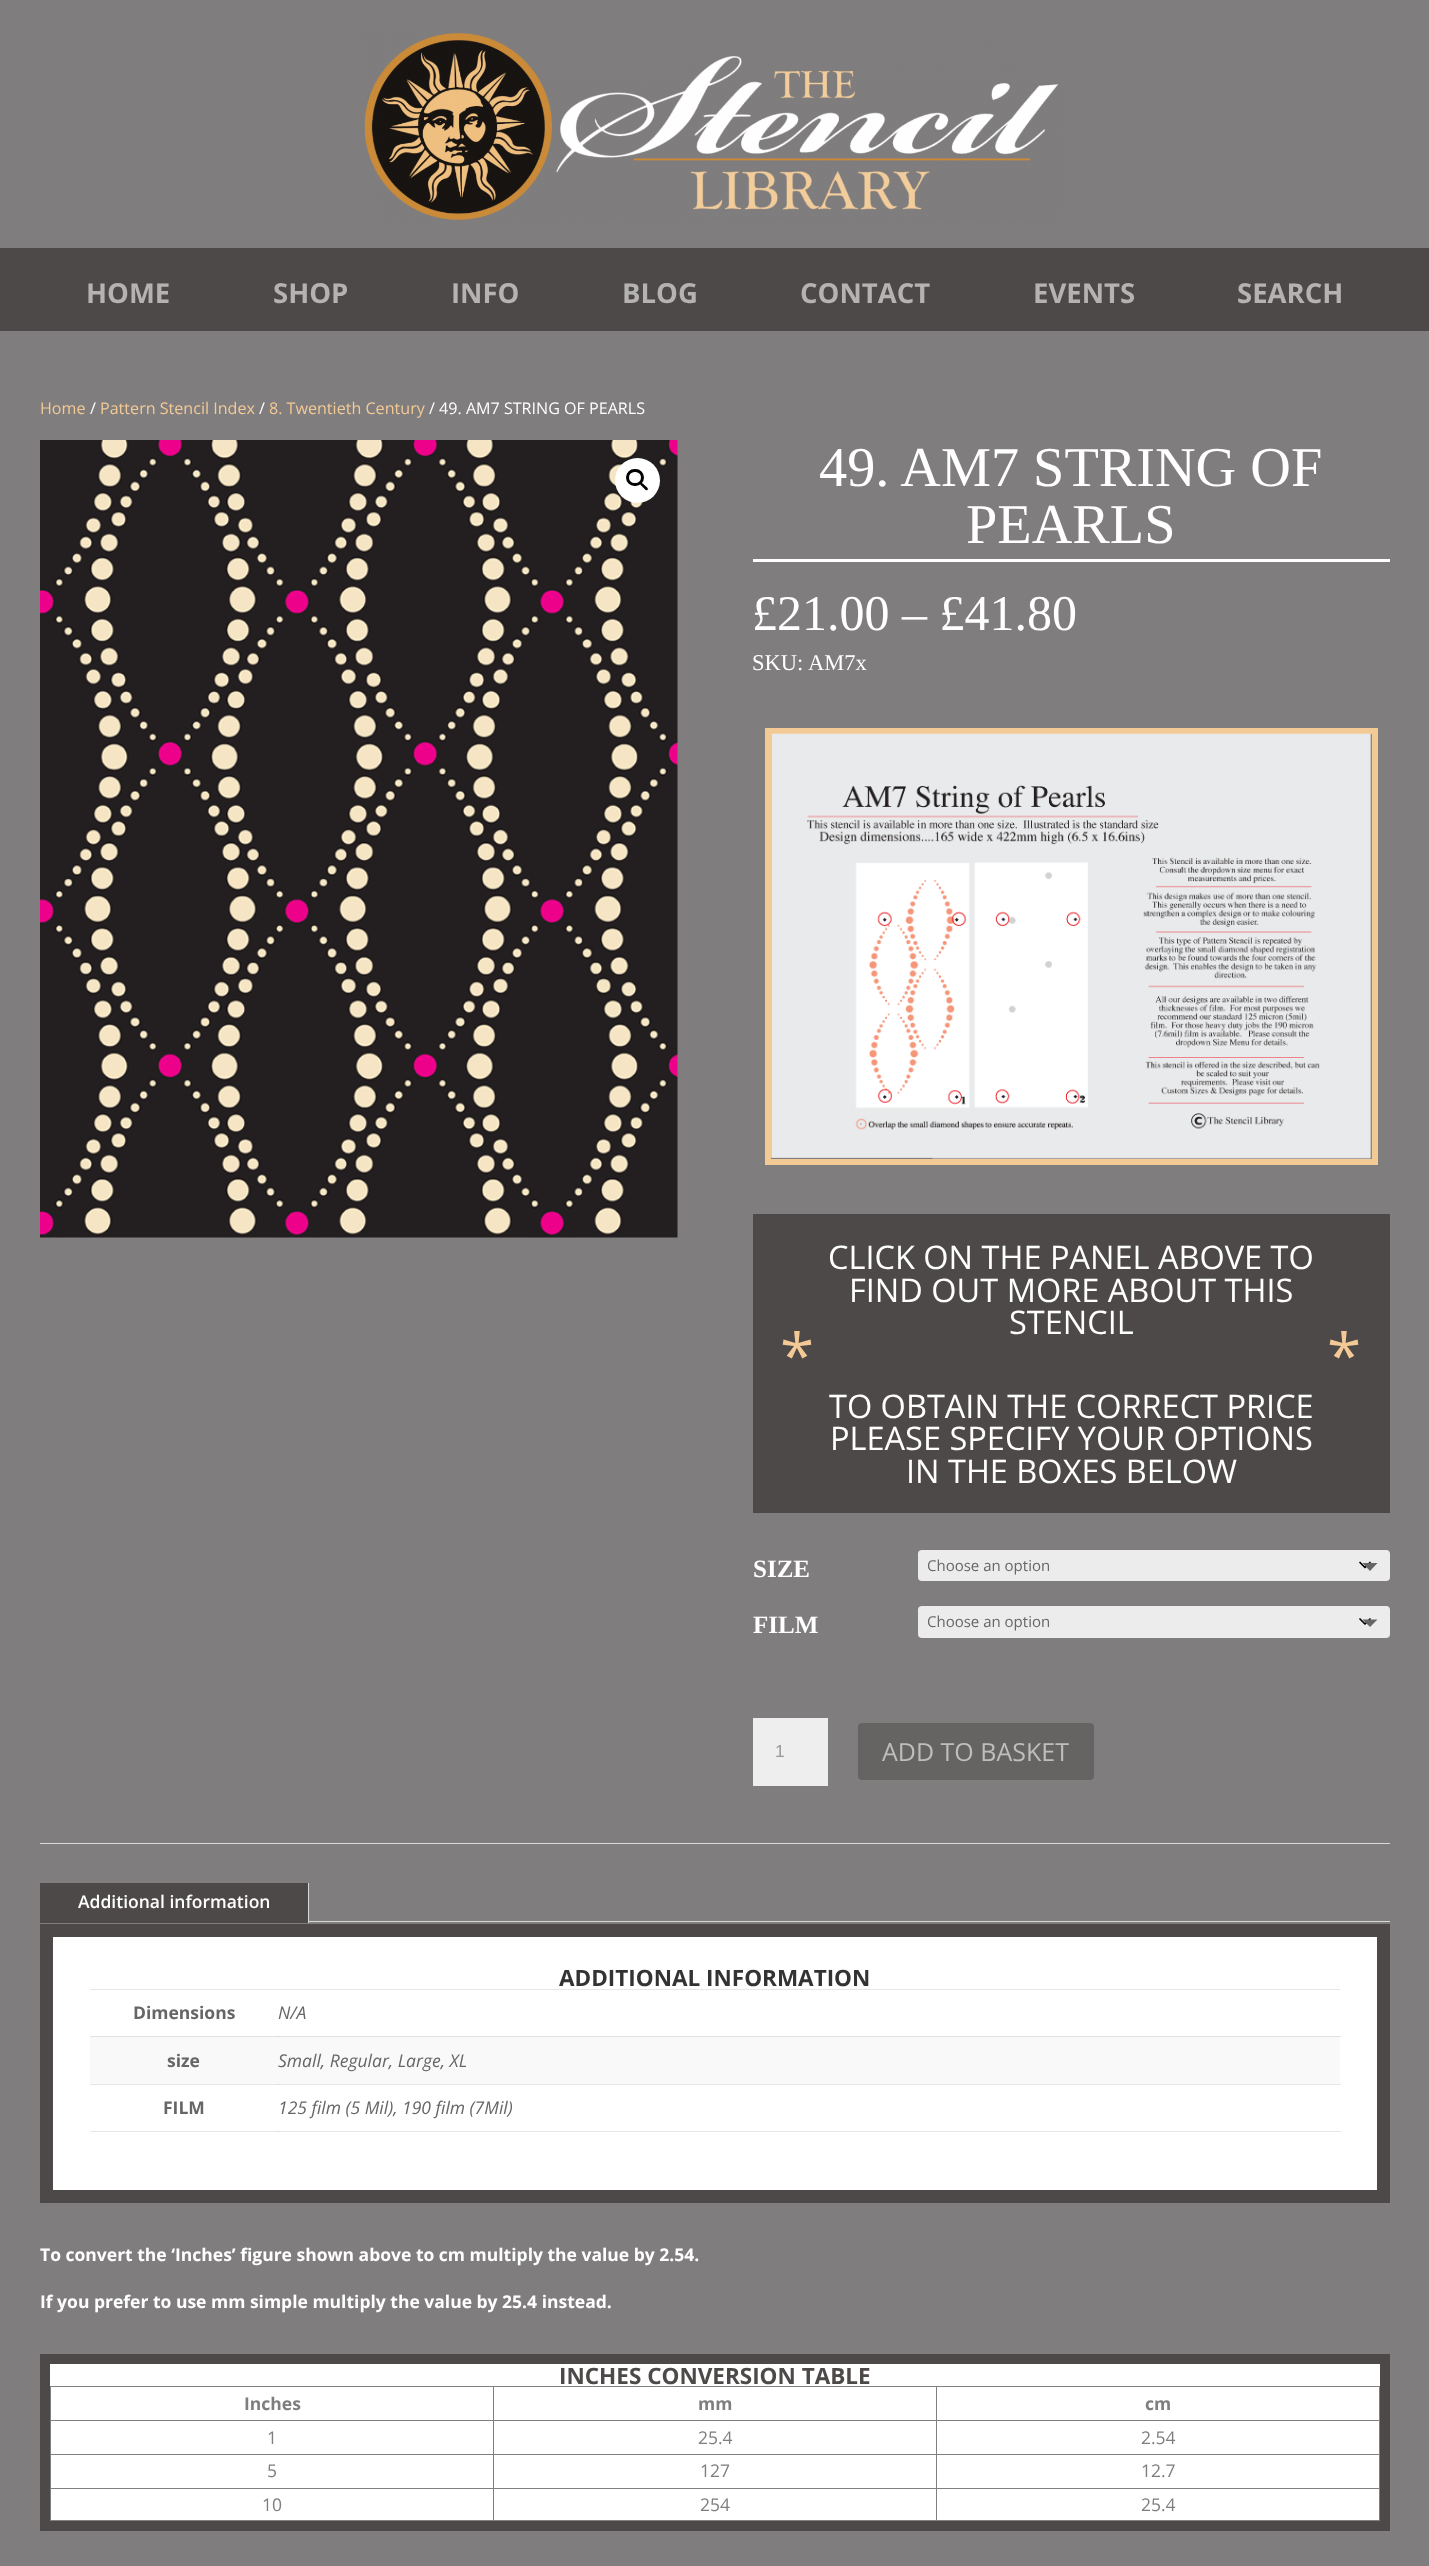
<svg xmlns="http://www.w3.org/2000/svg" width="1429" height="2566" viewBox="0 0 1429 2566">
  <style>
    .t1 { font: bold 27.5px Open Sans; fill: #b4b2b2; }
    .t2 { font: 16.1px Open Sans; fill: #f3ca96; }
    .t3 { font: 16.1px Open Sans; fill: #fff; }
    .t4 { font: 56.25px Liberation Serif; fill: #fff; }
    .t5 { font: 50px Liberation Serif; fill: #fff; }
    .t6 { font: 22.5px Liberation Serif; fill: #fff; }
    .t7 { font: 32.5px Open Sans; fill: #fff; }
    .t8 { font: 62px Open Sans; fill: #f3ca96; }
    .t9 { font: bold 25px Liberation Serif; fill: #fff; }
    .t10 { font: 15px Open Sans; fill: #666; }
    .t11 { font: 17.5px Liberation Sans; fill: #999; }
    .t12 { font: 25px Open Sans; fill: #bfbebe; }
    .t13 { font: 600 17.5px Open Sans; fill: #fff; }
    .t14 { font: bold 22.5px Open Sans; fill: #333; }
    .t15 { font: bold 17.5px Open Sans; fill: #666; }
    .t16 { font: italic 17.5px Open Sans; fill: #666; }
    .t17 { font: bold 17.5px Open Sans; fill: #fff; }
    .t18 { font: bold 22.5px Open Sans; fill: #4d4948; }
    .t19 { font: bold 17.5px Open Sans; fill: #7f7d7d; }
    .t20 { font: 17.5px Open Sans; fill: #7f7d7d; }
  </style>
  <rect width="100%" height="100%" fill="#7f7d7d"/>
  <image x="364" y="33" width="695" height="187" href="images/1.png"/>
  <rect x="0" y="248" width="1429" height="83" fill="#4d4948"/>
  <text x="86" y="303" class="t1">HOME</text>
  <text x="273" y="303" class="t1">SHOP</text>
  <text x="451" y="303" class="t1">INFO</text>
  <text x="622" y="303" class="t1">BLOG</text>
  <text x="800" y="303" class="t1">CONTACT</text>
  <text x="1033" y="303" class="t1">EVENTS</text>
  <text x="1237" y="303" class="t1">SEARCH</text>
  <text x="40" y="414" class="t2">Home</text>
  <text x="90" y="414" class="t3">/</text>
  <text x="100" y="414" class="t2">Pattern Stencil Index</text>
  <text x="259" y="414" class="t3">/</text>
  <text x="269" y="414" class="t2">8. Twentieth Century</text>
  <text x="429" y="414" class="t3">/ 49. AM7 STRING OF PEARLS</text>
  <image x="40" y="440" width="638" height="798" href="images/2.png"/>
  <circle cx="637.5" cy="480.5" r="22.5" fill="#fff"/>
  <rect x="627.5" y="470.5" width="15" height="14" rx="7" fill="none" stroke="#000" stroke-width="3"/>
  <path d="M640.5 483C642 481.5 644 485 645 485.5C646 486.5 649 488.5 647.5 490C646 491.5 644 488 643 487.5C642.5 486.5 639 484.5 640.5 483Z" fill="#000"/>
  <rect x="753" y="559" width="637" height="3" fill="#fff"/>
  <text x="819" y="486" class="t4">49. AM7 STRING OF</text>
  <text x="966" y="543" class="t4">PEARLS</text>
  <text x="752" y="630" class="t5">£21.00 – £41.80</text>
  <text x="752" y="670" class="t6">SKU:</text>
  <text x="808" y="670" class="t6">AM7x</text>
  <rect x="768" y="731" width="607" height="431" fill="none" stroke="#f3ca96" stroke-width="6"/>
  <image x="771" y="733" width="601" height="426" href="images/3.png"/>
  <rect x="753" y="1214" width="637" height="299" fill="#4d4948"/>
  <text x="828" y="1269" class="t7">CLICK ON THE PANEL ABOVE TO</text>
  <text x="849" y="1302" class="t7">FIND OUT MORE ABOUT THIS</text>
  <text x="1009" y="1334" class="t7">STENCIL</text>
  <text x="780" y="1378" class="t8">*</text>
  <text x="1327" y="1378" class="t8">*</text>
  <text x="829" y="1418" class="t7">TO OBTAIN THE CORRECT PRICE</text>
  <text x="830" y="1450" class="t7">PLEASE SPECIFY YOUR OPTIONS</text>
  <text x="906" y="1483" class="t7">IN THE BOXES BELOW</text>
  <text x="753" y="1577" class="t9">SIZE</text>
  <rect x="918" y="1550" width="472" height="31" rx="4" fill="#ececec"/>
  <path d="M1360 1562.5L1365 1567.5L1370 1562.5" fill="none" stroke="#000" stroke-width="1.7" stroke-linecap="round" stroke-linejoin="round"/>
  <text x="927" y="1571" class="t10">Choose an option</text>
  <path d="M1362.5 1563H1377.5L1370 1571Z" fill="#666"/>
  <text x="753" y="1633" class="t9">FILM</text>
  <rect x="918" y="1606" width="472" height="32" rx="4" fill="#ececec"/>
  <path d="M1360 1619L1365 1624L1370 1619" fill="none" stroke="#000" stroke-width="1.7" stroke-linecap="round" stroke-linejoin="round"/>
  <text x="927" y="1627" class="t10">Choose an option</text>
  <path d="M1362.5 1619.5H1377.5L1370 1627Z" fill="#666"/>
  <rect x="753" y="1718" width="75" height="68" fill="#eee"/>
  <text x="775" y="1757" class="t11">1</text>
  <rect x="858" y="1723" width="236" height="57" rx="4" fill="#666363"/>
  <text x="882" y="1761" class="t12">ADD TO BASKET</text>
  <rect x="40" y="1843" width="1350" height="1" fill="#d9d9d9"/>
  <rect x="40" y="1883" width="268" height="40" fill="#4d4948"/>
  <rect x="308" y="1883" width="1" height="40" fill="#d9d9d9"/>
  <text x="78" y="1908" class="t13">Additional information</text>
  <rect x="309" y="1921" width="1081" height="1" fill="#d9d9d9"/>
  <rect x="53" y="1937" width="1324" height="253" fill="#fff"/>
  <rect x="1340" y="2036" width="1" height="1" fill="#e6e6e6"/>
  <rect x="90" y="2084" width="189" height="1" fill="#e6e6e6"/>
  <rect x="90" y="2131" width="189" height="1" fill="#e6e6e6"/>
  <rect x="46.5" y="1930.5" width="1337" height="266" fill="none" stroke="#4d4948" stroke-width="13"/>
  <text x="559" y="1986" class="t14">ADDITIONAL INFORMATION</text>
  <rect x="90" y="1989" width="1250" height="1" fill="#e6e6e6"/>
  <text x="133" y="2019" class="t15">Dimensions</text>
  <text x="278" y="2019" class="t16">N/A</text>
  <rect x="90" y="2037" width="1250" height="47" fill="#f9f9f9"/>
  <rect x="90" y="2036" width="1250" height="1" fill="#e0e0e0"/>
  <text x="167" y="2067" class="t15">size</text>
  <rect x="278" y="2036" width="1" height="1" fill="#cacaca"/>
  <rect x="278" y="2084" width="1063" height="1" fill="#e6e6e6"/>
  <rect x="278" y="2084" width="1" height="1" fill="#cfcfcf"/>
  <text x="278" y="2067" class="t16">Small, Regular, Large, XL</text>
  <text x="163" y="2114" class="t15">FILM</text>
  <rect x="278" y="2131" width="1063" height="1" fill="#e6e6e6"/>
  <rect x="278" y="2131" width="1" height="1" fill="#cfcfcf"/>
  <text x="278" y="2114" class="t16">125 film (5 Mil), 190 film (7Mil)</text>
  <text x="40" y="2261" class="t17">To convert the ‘Inches’ figure shown above to cm multiply the value by 2.54.</text>
  <text x="40" y="2308" class="t17">If you prefer to use mm simple multiply the value by 25.4 instead.</text>
  <rect x="50" y="2364" width="1330" height="156" fill="#fff"/>
  <rect x="45" y="2359" width="1340" height="167" fill="none" stroke="#4d4948" stroke-width="10"/>
  <text x="559" y="2384" class="t18">INCHES CONVERSION TABLE</text>
  <rect x="50" y="2386" width="1330" height="1" fill="#808080"/>
  <rect x="1379" y="2386" width="1" height="135" fill="#808080"/>
  <rect x="50" y="2520" width="1330" height="1" fill="#808080"/>
  <rect x="50" y="2386" width="1" height="135" fill="#808080"/>
  <text x="244" y="2410" class="t19">Inches</text>
  <rect x="936" y="2420" width="444" height="1" fill="#808080"/>
  <rect x="936" y="2454" width="444" height="1" fill="#808080"/>
  <rect x="936" y="2488" width="444" height="1" fill="#808080"/>
  <rect x="936" y="2488" width="1" height="33" fill="#808080"/>
  <rect x="493" y="2488" width="445" height="1" fill="#808080"/>
  <rect x="936" y="2454" width="1" height="35" fill="#808080"/>
  <rect x="493" y="2454" width="445" height="1" fill="#808080"/>
  <rect x="936" y="2420" width="1" height="35" fill="#808080"/>
  <rect x="493" y="2420" width="445" height="1" fill="#808080"/>
  <rect x="493" y="2488" width="1" height="33" fill="#808080"/>
  <rect x="50" y="2488" width="444" height="1" fill="#808080"/>
  <rect x="493" y="2454" width="1" height="35" fill="#808080"/>
  <rect x="50" y="2454" width="444" height="1" fill="#808080"/>
  <rect x="493" y="2420" width="1" height="35" fill="#808080"/>
  <rect x="50" y="2420" width="444" height="1" fill="#808080"/>
  <rect x="493" y="2386" width="1" height="35" fill="#808080"/>
  <text x="698" y="2410" class="t19">mm</text>
  <rect x="936" y="2386" width="1" height="35" fill="#808080"/>
  <text x="1145" y="2410" class="t19">cm</text>
  <text x="267" y="2444" class="t20">1</text>
  <text x="698" y="2444" class="t20">25.4</text>
  <text x="1141" y="2444" class="t20">2.54</text>
  <text x="267" y="2477" class="t20">5</text>
  <text x="700" y="2477" class="t20">127</text>
  <text x="1141" y="2477" class="t20">12.7</text>
  <text x="262" y="2511" class="t20">10</text>
  <text x="700" y="2511" class="t20">254</text>
  <text x="1141" y="2511" class="t20">25.4</text>
</svg>
